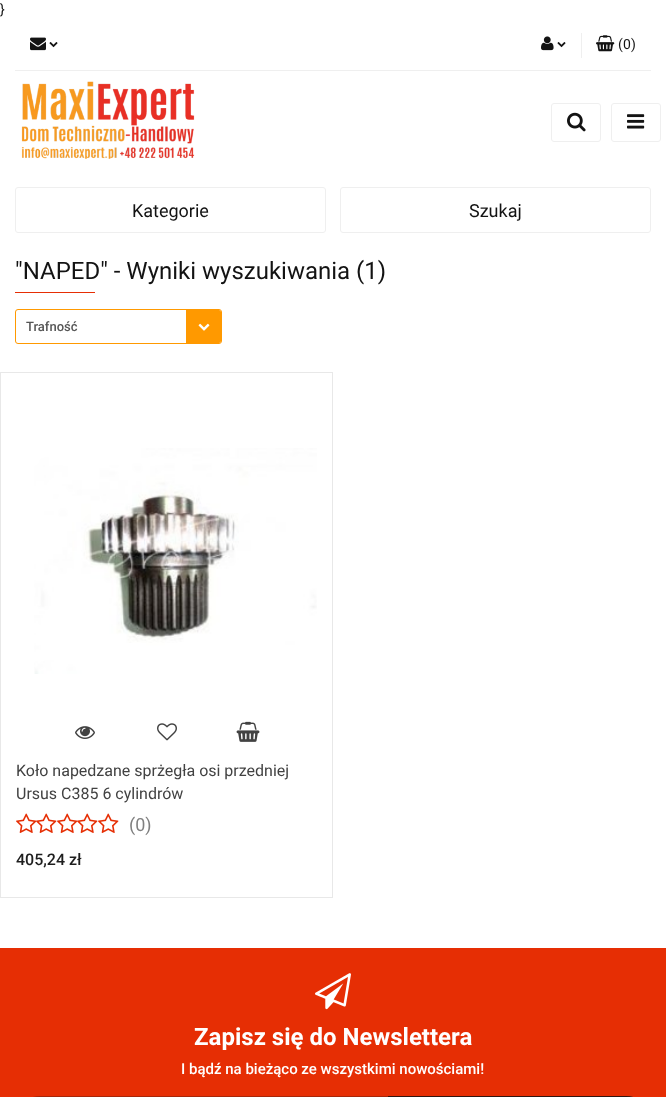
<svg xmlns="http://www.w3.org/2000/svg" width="666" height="1097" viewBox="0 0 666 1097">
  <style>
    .t1 { font: 14px Roboto; fill: #131313; }
    .t2 { font: 18px Roboto; fill: #131313; }
    .t3 { font: 24px Roboto; fill: #131313; }
    .t4 { font: 500 13px Roboto; fill: #555; }
    .t5 { font: 16px Roboto; fill: #424242; }
    .t6 { font: 18px Roboto; fill: #808080; }
    .t7 { font: 500 16px Roboto; fill: #1e1e1e; }
    .t8 { font: bold 24px Roboto; fill: #fff; }
    .t9 { font: 500 15px Roboto; fill: #fff; }
  </style>
  <rect width="100%" height="100%" fill="#fff"/>
  <text x="0" y="14" class="t1">}</text>
  <rect x="15" y="70" width="636" height="1" fill="#efefef"/>
  <image x="30" y="37" width="16" height="14" href="images/1.png"/>
  <image x="49" y="42" width="9" height="6" href="images/2.png"/>
  <image x="541" y="36" width="13" height="15" href="images/3.png"/>
  <image x="557" y="42" width="9" height="6" href="images/2.png"/>
  <rect x="581" y="33" width="1" height="25" fill="#efefef"/>
  <image x="596" y="35" width="19" height="17" href="images/4.png"/>
  <text x="618" y="49" class="t1">(</text>
  <text x="623" y="49" class="t1">0</text>
  <text x="631" y="49" class="t1">)</text>
  <image x="21" y="81" width="174" height="78" href="images/5.png"/>
  <rect x="551.5" y="103.5" width="49" height="38" rx="2.5" fill="none" stroke="#efefef"/>
  <image x="567" y="112" width="19" height="20" href="images/6.png"/>
  <rect x="611.5" y="103.5" width="49" height="38" rx="2.5" fill="none" stroke="#efefef"/>
  <image x="627" y="114" width="18" height="15" href="images/7.png"/>
  <rect x="15.5" y="187.5" width="310" height="45" rx="2.5" fill="none" stroke="#efefef"/>
  <text x="132" y="217" class="t2">Kategorie</text>
  <rect x="340.5" y="187.5" width="310" height="45" rx="2.5" fill="none" stroke="#efefef"/>
  <text x="469" y="217" class="t2">Szukaj</text>
  <text x="15" y="279" class="t3">"NAPED" - Wyniki wyszukiwania (1)</text>
  <rect x="15" y="292" width="80" height="1" fill="#e62e04"/>
  <rect x="15.5" y="309.5" width="206" height="34" rx="2.5" fill="none" stroke="#f90"/>
  <text x="26" y="331" class="t4">Trafność</text>
  <path d="M186 310H219C220 310 221 311 221 312V341C221 342 220 343 219 343H186Z" fill="#f90"/>
  <image x="198" y="323" width="12" height="8" href="images/8.png"/>
  <rect x="0.5" y="372.5" width="332" height="525" fill="none" stroke="#e8e8e8"/>
  <image x="34" y="448" width="283" height="226" href="images/9.png"/>
  <image x="75" y="726" width="20" height="13" href="images/10.png"/>
  <image x="157" y="723" width="20" height="18" href="images/11.png"/>
  <image x="236" y="721" width="24" height="21" href="images/12.png"/>
  <text x="16" y="776" class="t5">Koło napedzane sprżegła osi przedniej</text>
  <text x="16" y="799" class="t5">Ursus C385 6 cylindrów</text>
  <image x="16" y="813" width="21" height="20" href="images/13.png"/>
  <image x="36" y="813" width="21" height="20" href="images/14.png"/>
  <image x="57" y="813" width="21" height="20" href="images/13.png"/>
  <image x="77" y="813" width="21" height="20" href="images/14.png"/>
  <image x="98" y="813" width="21" height="20" href="images/13.png"/>
  <text x="129" y="831" class="t6">(0)</text>
  <text x="16" y="865" class="t7">405,24 zł</text>
  <rect x="0" y="948" width="666" height="149" fill="#e62e04"/>
  <image x="315" y="973" width="36" height="37" href="images/15.png"/>
  <text x="194" y="1045" class="t8">Zapisz się do Newslettera</text>
  <text x="181" y="1074" class="t9">I bądź na bieżąco ze wszystkimi nowościami!</text>
  <path d="M40 1096H388V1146H40C26 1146 15 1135 15 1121C15 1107 26 1096 40 1096ZM40 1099H388V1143H40C28 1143 18 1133 18 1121C18 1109 28 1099 40 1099Z" fill="#a72609" fill-rule="evenodd"/>
  <path d="M388 1096H626C640 1096 651 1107 651 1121V1097C651 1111 640 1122 626 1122H388Z" fill="#3d1810"/>
  <path d="M389.5 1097.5H626C639 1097.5 649.5 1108 649.5 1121V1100C649.5 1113 639 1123.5 626 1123.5H389.5Z" fill="none" stroke="#1313134d" stroke-width="3"/>
</svg>
